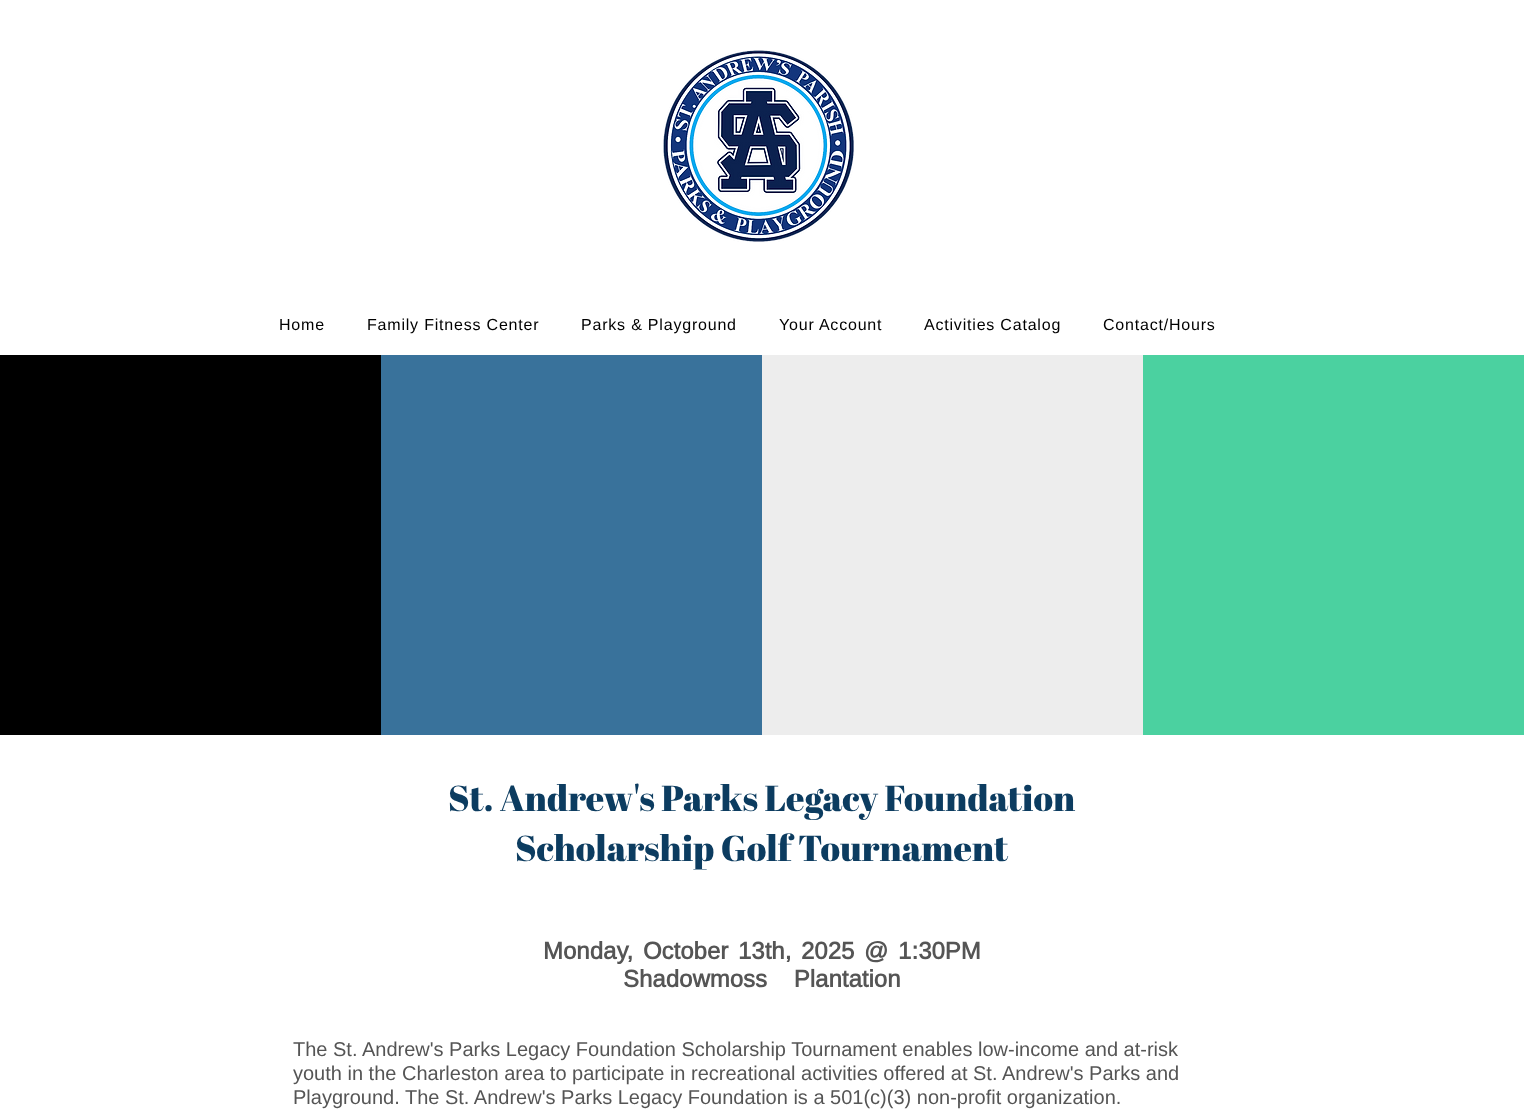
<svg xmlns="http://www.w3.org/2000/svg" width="1524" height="1112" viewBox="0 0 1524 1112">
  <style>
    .t1 { font: 16px Arimo; letter-spacing: 0.8px; fill: #000; }
    .t2 { font: 36px Abril Fatface; fill: #0c3c60; }
    .t3 { font: bold 24px Arimo; fill: #555; }
    .t4 { font: 20px 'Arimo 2'; fill: #555; }
  </style>
  <rect width="100%" height="100%" fill="#fff"/>
  <image x="663" y="50" width="191" height="192" href="images/1.png"/>
  <text x="279" y="330" class="t1">Home</text>
  <text x="367" y="330" class="t1">Family Fitness Center</text>
  <text x="581" y="330" class="t1">Parks &amp; Playground</text>
  <text x="779" y="330" class="t1">Your Account</text>
  <text x="924" y="330" class="t1">Activities Catalog</text>
  <text x="1103" y="330" class="t1">Contact/Hours</text>
  <rect x="0" y="355" width="381" height="380" fill="#000"/>
  <rect x="381" y="355" width="381" height="380" fill="#39729b"/>
  <rect x="762" y="355" width="381" height="380" fill="#ededed"/>
  <rect x="1143" y="355" width="381" height="380" fill="#4bd1a0"/>
  <text x="448" y="811" class="t2">St. Andrew's Parks Legacy Foundation</text>
  <text x="515" y="861" class="t2">Scholarship Golf Tournament</text>
  <text x="543" y="959" word-spacing="3" class="t3">Monday, October 13th, 2025 @ 1:30PM</text>
  <text x="623" y="987" word-spacing="20" class="t3">Shadowmoss Plantation</text>
  <text x="293" y="1056" class="t4">The St. Andrew's Parks Legacy Foundation Scholarship Tournament enables low-income and at-risk</text>
  <text x="293" y="1080" class="t4">youth in the Charleston area to participate in recreational activities offered at St. Andrew's Parks and</text>
  <text x="293" y="1104" class="t4">Playground. The St. Andrew's Parks Legacy Foundation is a 501(c)(3) non-profit organization.</text>
</svg>
